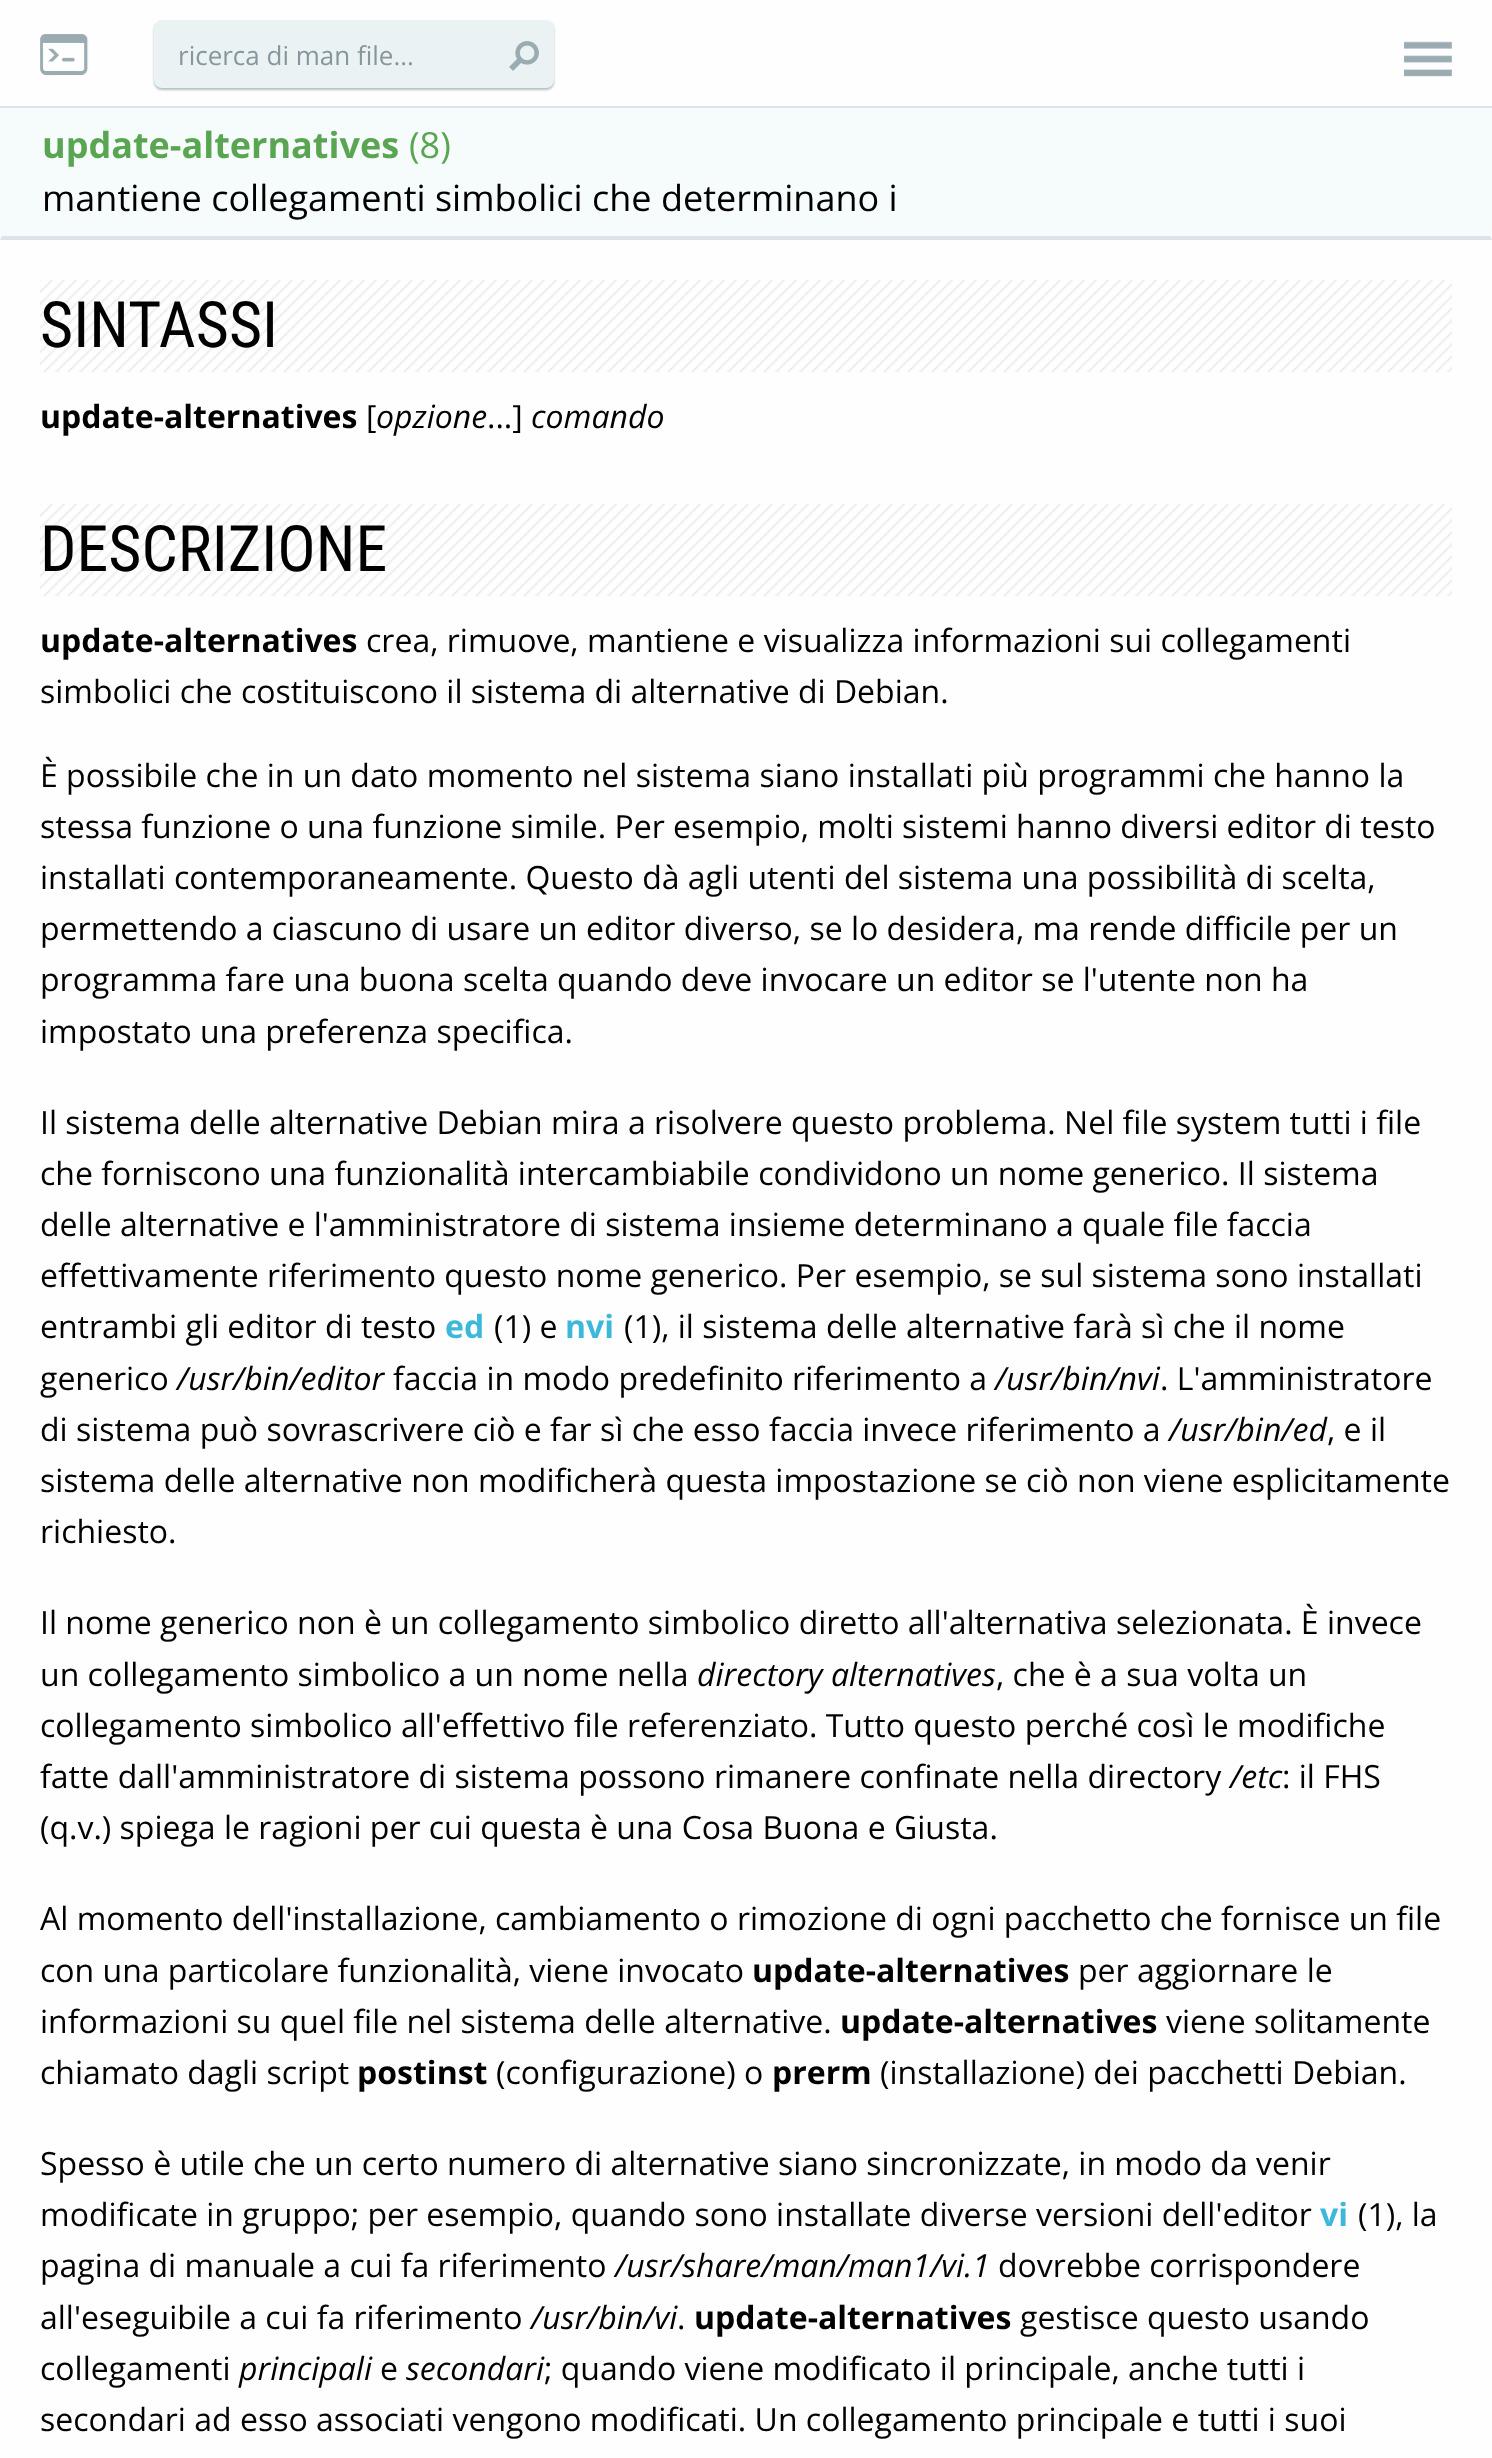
<svg xmlns="http://www.w3.org/2000/svg" width="1492" height="2458" viewBox="0 0 1492 2458">
  <style>
    .t1 { font: 26px Open Sans; fill: #86969d; }
    .t2 { font: bold 36px Open Sans; fill: #59a552; }
    .t3 { font: 36px Open Sans; fill: #59a552; }
    .t4 { font: 36px Open Sans; fill: #000; }
    .t5 { font: 64px Roboto Condensed; fill: #000; }
    .t6 { font: bold 32px Open Sans; fill: #000; }
    .t7 { font: 32px Open Sans; fill: #000; }
    .t8 { font: italic 32px Open Sans; fill: #000; }
    .t9 { font: bold 32px Open Sans; fill: #3db8db; }
  </style>
  <rect width="100%" height="100%" fill="#fefefe"/>
  <rect x="0" y="106" width="1492" height="2" fill="#dce5e7"/>
  <image x="40" y="34" width="49" height="42" href="images/1.png"/>
  <rect x="154" y="22" width="400" height="68" rx="8" fill="#062f374d" filter="blur(1px)"/>
  <rect x="154" y="20" width="400" height="68" rx="8" fill="#eaf2f4"/>
  <text x="178" y="65" class="t1">ricerca di man file...</text>
  <image x="509" y="41" width="30" height="30" href="images/2.png"/>
  <image x="1404" y="41" width="48" height="36" href="images/3.png"/>
  <rect x="0" y="108" width="1492" height="132" fill="#f6fbfc"/>
  <path d="M1492 240H0L2 236H1490Z" fill="#dfe3e9"/>
  <text x="42" y="158" class="t2">update-alternatives</text>
  <text x="409" y="158" class="t3">(8)</text>
  <text x="42" y="211" class="t4">mantiene collegamenti simbolici che determinano i</text>
  <image x="40" y="280" width="1412" height="92" href="images/4.png"/>
  <text x="40" y="347" class="t5">SINTASSI</text>
  <text x="40" y="428" class="t6">update-alternatives</text>
  <text x="366" y="428" class="t7">[</text>
  <text x="376" y="428" class="t8">opzione</text>
  <text x="487" y="428" class="t7">...]</text>
  <text x="531" y="428" class="t8">comando</text>
  <image x="40" y="504" width="1412" height="92" href="images/5.png"/>
  <text x="40" y="571" class="t5">DESCRIZIONE</text>
  <text x="40" y="652" class="t6">update-alternatives</text>
  <text x="366" y="652" class="t7">crea, rimuove, mantiene e visualizza informazioni sui collegamenti</text>
  <text x="40" y="703" class="t7">simbolici che costituiscono il sistema di alternative di Debian.</text>
  <text x="40" y="787" class="t7">È possibile che in un dato momento nel sistema siano installati più programmi che hanno la</text>
  <text x="40" y="838" class="t7">stessa funzione o una funzione simile. Per esempio, molti sistemi hanno diversi editor di testo</text>
  <text x="40" y="889" class="t7">installati contemporaneamente. Questo dà agli utenti del sistema una possibilità di scelta,</text>
  <text x="40" y="940" class="t7">permettendo a ciascuno di usare un editor diverso, se lo desidera, ma rende difficile per un</text>
  <text x="40" y="991" class="t7">programma fare una buona scelta quando deve invocare un editor se l'utente non ha</text>
  <text x="40" y="1043" class="t7">impostato una preferenza specifica.</text>
  <text x="40" y="1134" class="t7">Il sistema delle alternative Debian mira a risolvere questo problema. Nel file system tutti i file</text>
  <text x="40" y="1185" class="t7">che forniscono una funzionalità intercambiabile condividono un nome generico. Il sistema</text>
  <text x="40" y="1236" class="t7">delle alternative e l'amministratore di sistema insieme determinano a quale file faccia</text>
  <text x="40" y="1287" class="t7">effettivamente riferimento questo nome generico. Per esempio, se sul sistema sono installati</text>
  <text x="40" y="1338" class="t7">entrambi gli editor di testo</text>
  <text x="445" y="1338" class="t9">ed</text>
  <text x="494" y="1338" class="t7">(1) e</text>
  <text x="565" y="1338" class="t9">nvi</text>
  <text x="624" y="1338" class="t7">(1), il sistema delle alternative farà sì che il nome</text>
  <text x="40" y="1390" class="t7">generico</text>
  <text x="177" y="1390" class="t8">/usr/bin/editor</text>
  <text x="393" y="1390" class="t7">faccia in modo predefinito riferimento a</text>
  <text x="995" y="1390" class="t8">/usr/bin/nvi</text>
  <text x="1160" y="1390" class="t7">. L'amministratore</text>
  <text x="40" y="1441" class="t7">di sistema può sovrascrivere ciò e far sì che esso faccia invece riferimento a</text>
  <text x="1169" y="1441" class="t8">/usr/bin/ed</text>
  <text x="1327" y="1441" class="t7">, e il</text>
  <text x="40" y="1492" class="t7">sistema delle alternative non modificherà questa impostazione se ciò non viene esplicitamente</text>
  <text x="40" y="1543" class="t7">richiesto.</text>
  <text x="40" y="1634" class="t7">Il nome generico non è un collegamento simbolico diretto all'alternativa selezionata. È invece</text>
  <text x="40" y="1686" class="t7">un collegamento simbolico a un nome nella</text>
  <text x="697" y="1686" class="t8">directory alternatives</text>
  <text x="996" y="1686" class="t7">, che è a sua volta un</text>
  <text x="40" y="1737" class="t7">collegamento simbolico all'effettivo file referenziato. Tutto questo perché così le modifiche</text>
  <text x="40" y="1788" class="t7">fatte dall'amministratore di sistema possono rimanere confinate nella directory</text>
  <text x="1230" y="1788" class="t8">/etc</text>
  <text x="1282" y="1788" class="t7">: il FHS</text>
  <text x="40" y="1839" class="t7">(q.v.) spiega le ragioni per cui questa è una Cosa Buona e Giusta.</text>
  <text x="40" y="1930" class="t7">Al momento dell'installazione, cambiamento o rimozione di ogni pacchetto che fornisce un file</text>
  <text x="40" y="1982" class="t7">con una particolare funzionalità, viene invocato</text>
  <text x="752" y="1982" class="t6">update-alternatives</text>
  <text x="1078" y="1982" class="t7">per aggiornare le</text>
  <text x="40" y="2033" class="t7">informazioni su quel file nel sistema delle alternative.</text>
  <text x="840" y="2033" class="t6">update-alternatives</text>
  <text x="1166" y="2033" class="t7">viene solitamente</text>
  <text x="40" y="2084" class="t7">chiamato dagli script</text>
  <text x="357" y="2084" class="t6">postinst</text>
  <text x="496" y="2084" class="t7">(configurazione) o</text>
  <text x="772" y="2084" class="t6">prerm</text>
  <text x="880" y="2084" class="t7">(installazione) dei pacchetti Debian.</text>
  <text x="40" y="2175" class="t7">Spesso è utile che un certo numero di alternative siano sincronizzate, in modo da venir</text>
  <text x="40" y="2226" class="t7">modificate in gruppo; per esempio, quando sono installate diverse versioni dell'editor</text>
  <text x="1320" y="2226" class="t9">vi</text>
  <text x="1358" y="2226" class="t7">(1), la</text>
  <text x="40" y="2277" class="t7">pagina di manuale a cui fa riferimento</text>
  <text x="615" y="2277" class="t8">/usr/share/man/man1/vi.1</text>
  <text x="998" y="2277" class="t7">dovrebbe corrispondere</text>
  <text x="40" y="2329" class="t7">all'eseguibile a cui fa riferimento</text>
  <text x="531" y="2329" class="t8">/usr/bin/vi</text>
  <text x="677" y="2329" class="t7">.</text>
  <text x="694" y="2329" class="t6">update-alternatives</text>
  <text x="1020" y="2329" class="t7">gestisce questo usando</text>
  <text x="40" y="2380" class="t7">collegamenti</text>
  <text x="239" y="2380" class="t8">principali</text>
  <text x="380" y="2380" class="t7">e</text>
  <text x="406" y="2380" class="t8">secondari</text>
  <text x="544" y="2380" class="t7">; quando viene modificato il principale, anche tutti i</text>
  <text x="40" y="2431" class="t7">secondari ad esso associati vengono modificati. Un collegamento principale e tutti i suoi</text>
</svg>
